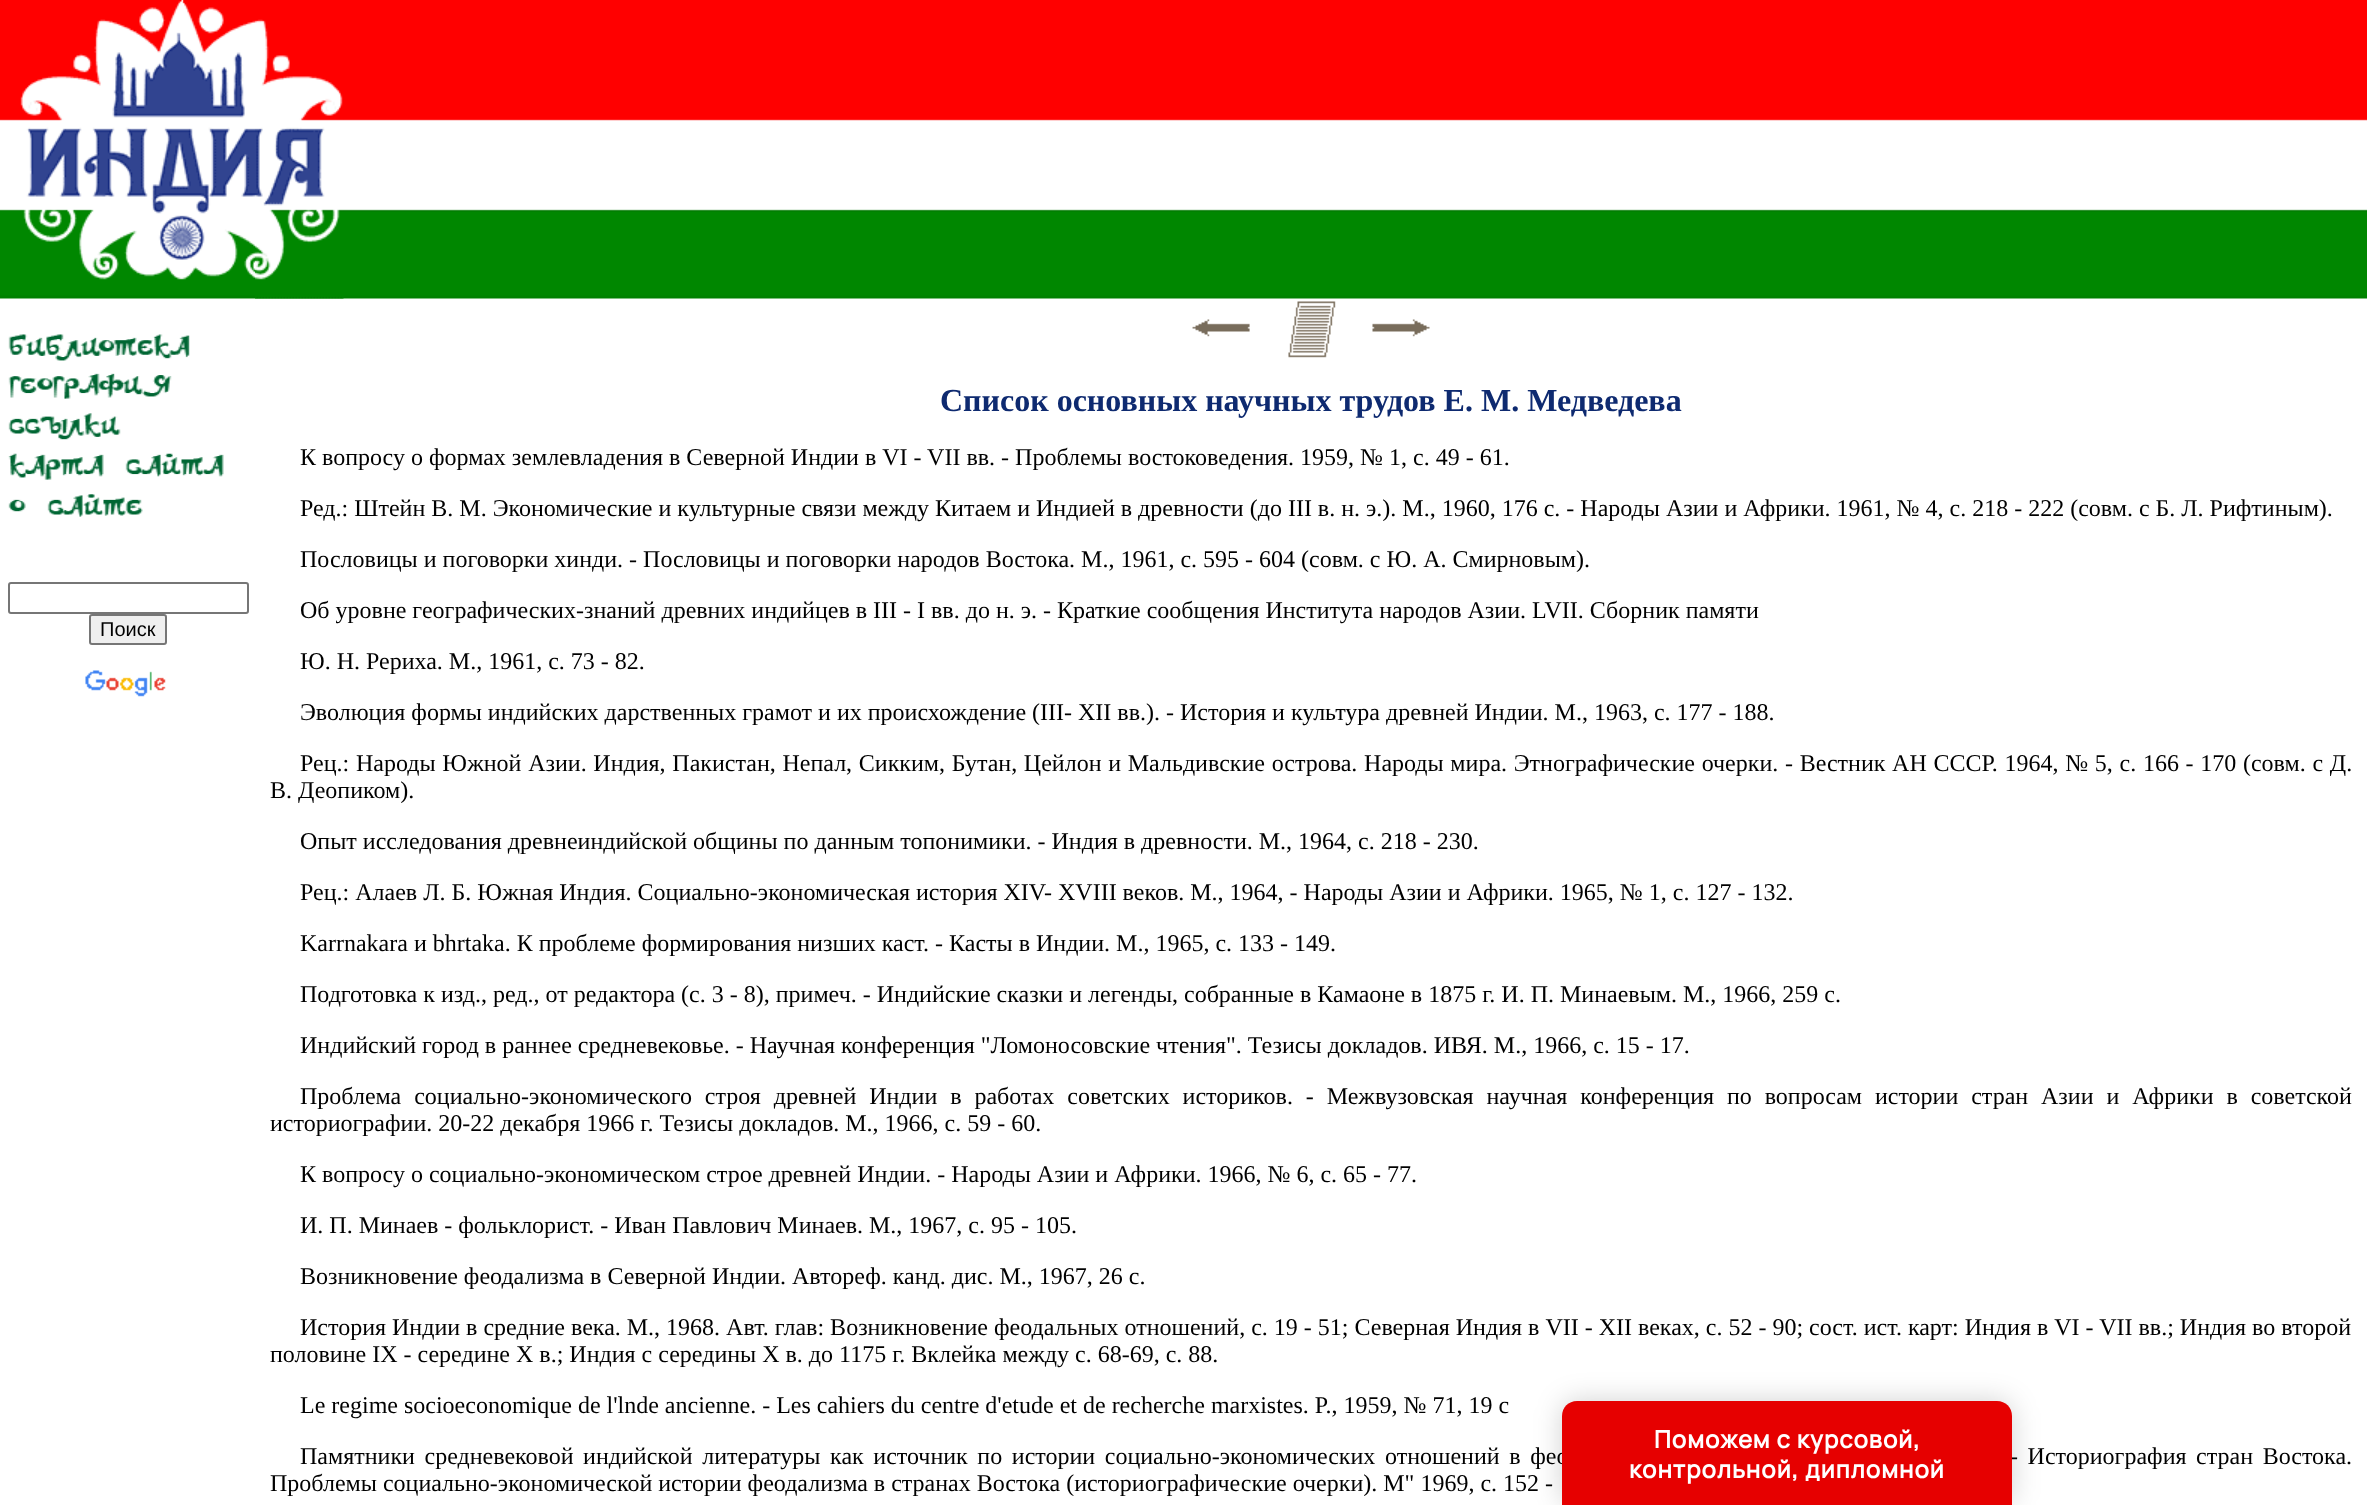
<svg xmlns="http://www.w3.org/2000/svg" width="2367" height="1505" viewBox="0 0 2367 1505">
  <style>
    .t1 { font: 20px Liberation Sans; fill: #000; }
    .t2 { font: bold 32px Liberation Serif; fill: #0e2a70; }
    .t3 { font: 24px Liberation Serif; fill: #000; }
    .t4 { font: bold 24px Manrope; letter-spacing: 1px; fill: #fff; }
  </style>
  <rect width="100%" height="100%" fill="#fff"/>
  <image x="0" y="0" width="255" height="299" href="images/1.png"/>
  <image x="255" y="0" width="2112" height="299" href="images/2.png"/>
  <image x="255" y="19" width="89" height="280" href="images/3.png"/>
  <image x="8" y="334" width="182" height="27" href="images/4.png"/>
  <image x="8" y="373" width="164" height="26" href="images/5.png"/>
  <image x="8" y="413" width="113" height="27" href="images/6.png"/>
  <image x="8" y="453" width="216" height="27" href="images/7.png"/>
  <image x="8" y="494" width="135" height="23" href="images/8.png"/>
  <rect x="9" y="583" width="239" height="30" rx="2" fill="none" stroke="#767676" stroke-width="2"/>
  <rect x="90" y="615" width="76" height="29" rx="2" fill="#efefef" stroke="#767676" stroke-width="2"/>
  <text x="100" y="636" class="t1">Поиск</text>
  <image x="85" y="670" width="81" height="27" href="images/9.png"/>
  <image x="1192" y="319" width="58" height="18" href="images/10.png"/>
  <image x="1288" y="301" width="48" height="57" href="images/11.png"/>
  <image x="1372" y="319" width="58" height="18" href="images/12.png"/>
  <text x="940" y="411" class="t2">Список основных научных трудов Е. М. Медведева</text>
  <text x="300" y="465" class="t3">К вопросу о формах землевладения в Северной Индии в VI - VII вв. - Проблемы востоковедения. 1959, № 1, с. 49 - 61.</text>
  <text x="300" y="516" class="t3">Ред.: Штейн В. М. Экономические и культурные связи между Китаем и Индией в древности (до III в. н. э.). М., 1960, 176 с. - Народы Азии и Африки. 1961, № 4, с. 218 - 222 (совм. с Б. Л. Рифтиным).</text>
  <text x="300" y="567" class="t3">Пословицы и поговорки хинди. - Пословицы и поговорки народов Востока. М., 1961, с. 595 - 604 (совм. с Ю. А. Смирновым).</text>
  <text x="300" y="618" class="t3">Об уровне географических-знаний древних индийцев в III - I вв. до н. э. - Краткие сообщения Института народов Азии. LVII. Сборник памяти</text>
  <text x="300" y="669" class="t3">Ю. Н. Рериха. М., 1961, с. 73 - 82.</text>
  <text x="300" y="720" class="t3">Эволюция формы индийских дарственных грамот и их происхождение (III- XII вв.). - История и культура древней Индии. М., 1963, с. 177 - 188.</text>
  <text x="300" y="771" word-spacing="0.7" class="t3">Рец.: Народы Южной Азии. Индия, Пакистан, Непал, Сикким, Бутан, Цейлон и Мальдивские острова. Народы мира. Этнографические очерки. - Вестник АН СССР. 1964, № 5, с. 166 - 170 (совм. с Д.</text>
  <text x="270" y="798" class="t3">В. Деопиком).</text>
  <text x="300" y="849" class="t3">Опыт исследования древнеиндийской общины по данным топонимики. - Индия в древности. М., 1964, с. 218 - 230.</text>
  <text x="300" y="900" class="t3">Рец.: Алаев Л. Б. Южная Индия. Социально-экономическая история XIV- XVIII веков. М., 1964, - Народы Азии и Африки. 1965, № 1, с. 127 - 132.</text>
  <text x="300" y="951" class="t3">Karrnakara и bhrtaka. К проблеме формирования низших каст. - Касты в Индии. М., 1965, с. 133 - 149.</text>
  <text x="300" y="1002" class="t3">Подготовка к изд., ред., от редактора (с. 3 - 8), примеч. - Индийские сказки и легенды, собранные в Камаоне в 1875 г. И. П. Минаевым. М., 1966, 259 с.</text>
  <text x="300" y="1053" class="t3">Индийский город в раннее средневековье. - Научная конференция "Ломоносовские чтения". Тезисы докладов. ИВЯ. М., 1966, с. 15 - 17.</text>
  <text x="300" y="1104" word-spacing="6.9" class="t3">Проблема социально-экономического строя древней Индии в работах советских историков. - Межвузовская научная конференция по вопросам истории стран Азии и Африки в советской</text>
  <text x="270" y="1131" class="t3">историографии. 20-22 декабря 1966 г. Тезисы докладов. М., 1966, с. 59 - 60.</text>
  <text x="300" y="1182" class="t3">К вопросу о социально-экономическом строе древней Индии. - Народы Азии и Африки. 1966, № 6, с. 65 - 77.</text>
  <text x="300" y="1233" class="t3">И. П. Минаев - фольклорист. - Иван Павлович Минаев. М., 1967, с. 95 - 105.</text>
  <text x="300" y="1284" class="t3">Возникновение феодализма в Северной Индии. Автореф. канд. дис. М., 1967, 26 с.</text>
  <text x="300" y="1335" class="t3">История Индии в средние века. М., 1968. Авт. глав: Возникновение феодальных отношений, с. 19 - 51; Северная Индия в VII - XII веках, с. 52 - 90; сост. ист. карт: Индия в VI - VII вв.; Индия во второй</text>
  <text x="270" y="1362" class="t3">половине IX - середине X в.; Индия с середины X в. до 1175 г. Вклейка между с. 68-69, с. 88.</text>
  <text x="300" y="1413" class="t3">Le regime socioeconomique de l'lnde ancienne. - Les cahiers du centre d'etude et de recherche marxistes. P., 1959, № 71, 19 с</text>
  <text x="300" y="1464" word-spacing="3.6" class="t3">Памятники средневековой индийской литературы как источник по истории социально-экономических отношений в фео</text>
  <text x="2010" y="1464" word-spacing="3.6" class="t3">- Историография стран Востока.</text>
  <text x="270" y="1491" class="t3">Проблемы социально-экономической истории феодализма в странах Востока (историографические очерки). М" 1969, с. 152 -</text>
  <rect x="1562" y="1401" width="450" height="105" rx="15" fill="#0000002e" filter="blur(14px)"/>
  <path d="M1577 1401H1997C2005.5 1401 2012 1407.5 2012 1416V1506H1562V1416C1562 1407.5 1568.5 1401 1577 1401Z" fill="#e60000"/>
  <text x="1654" y="1448" class="t4">Поможем с курсовой,</text>
  <text x="1629" y="1478" class="t4">контрольной, дипломной</text>
</svg>
